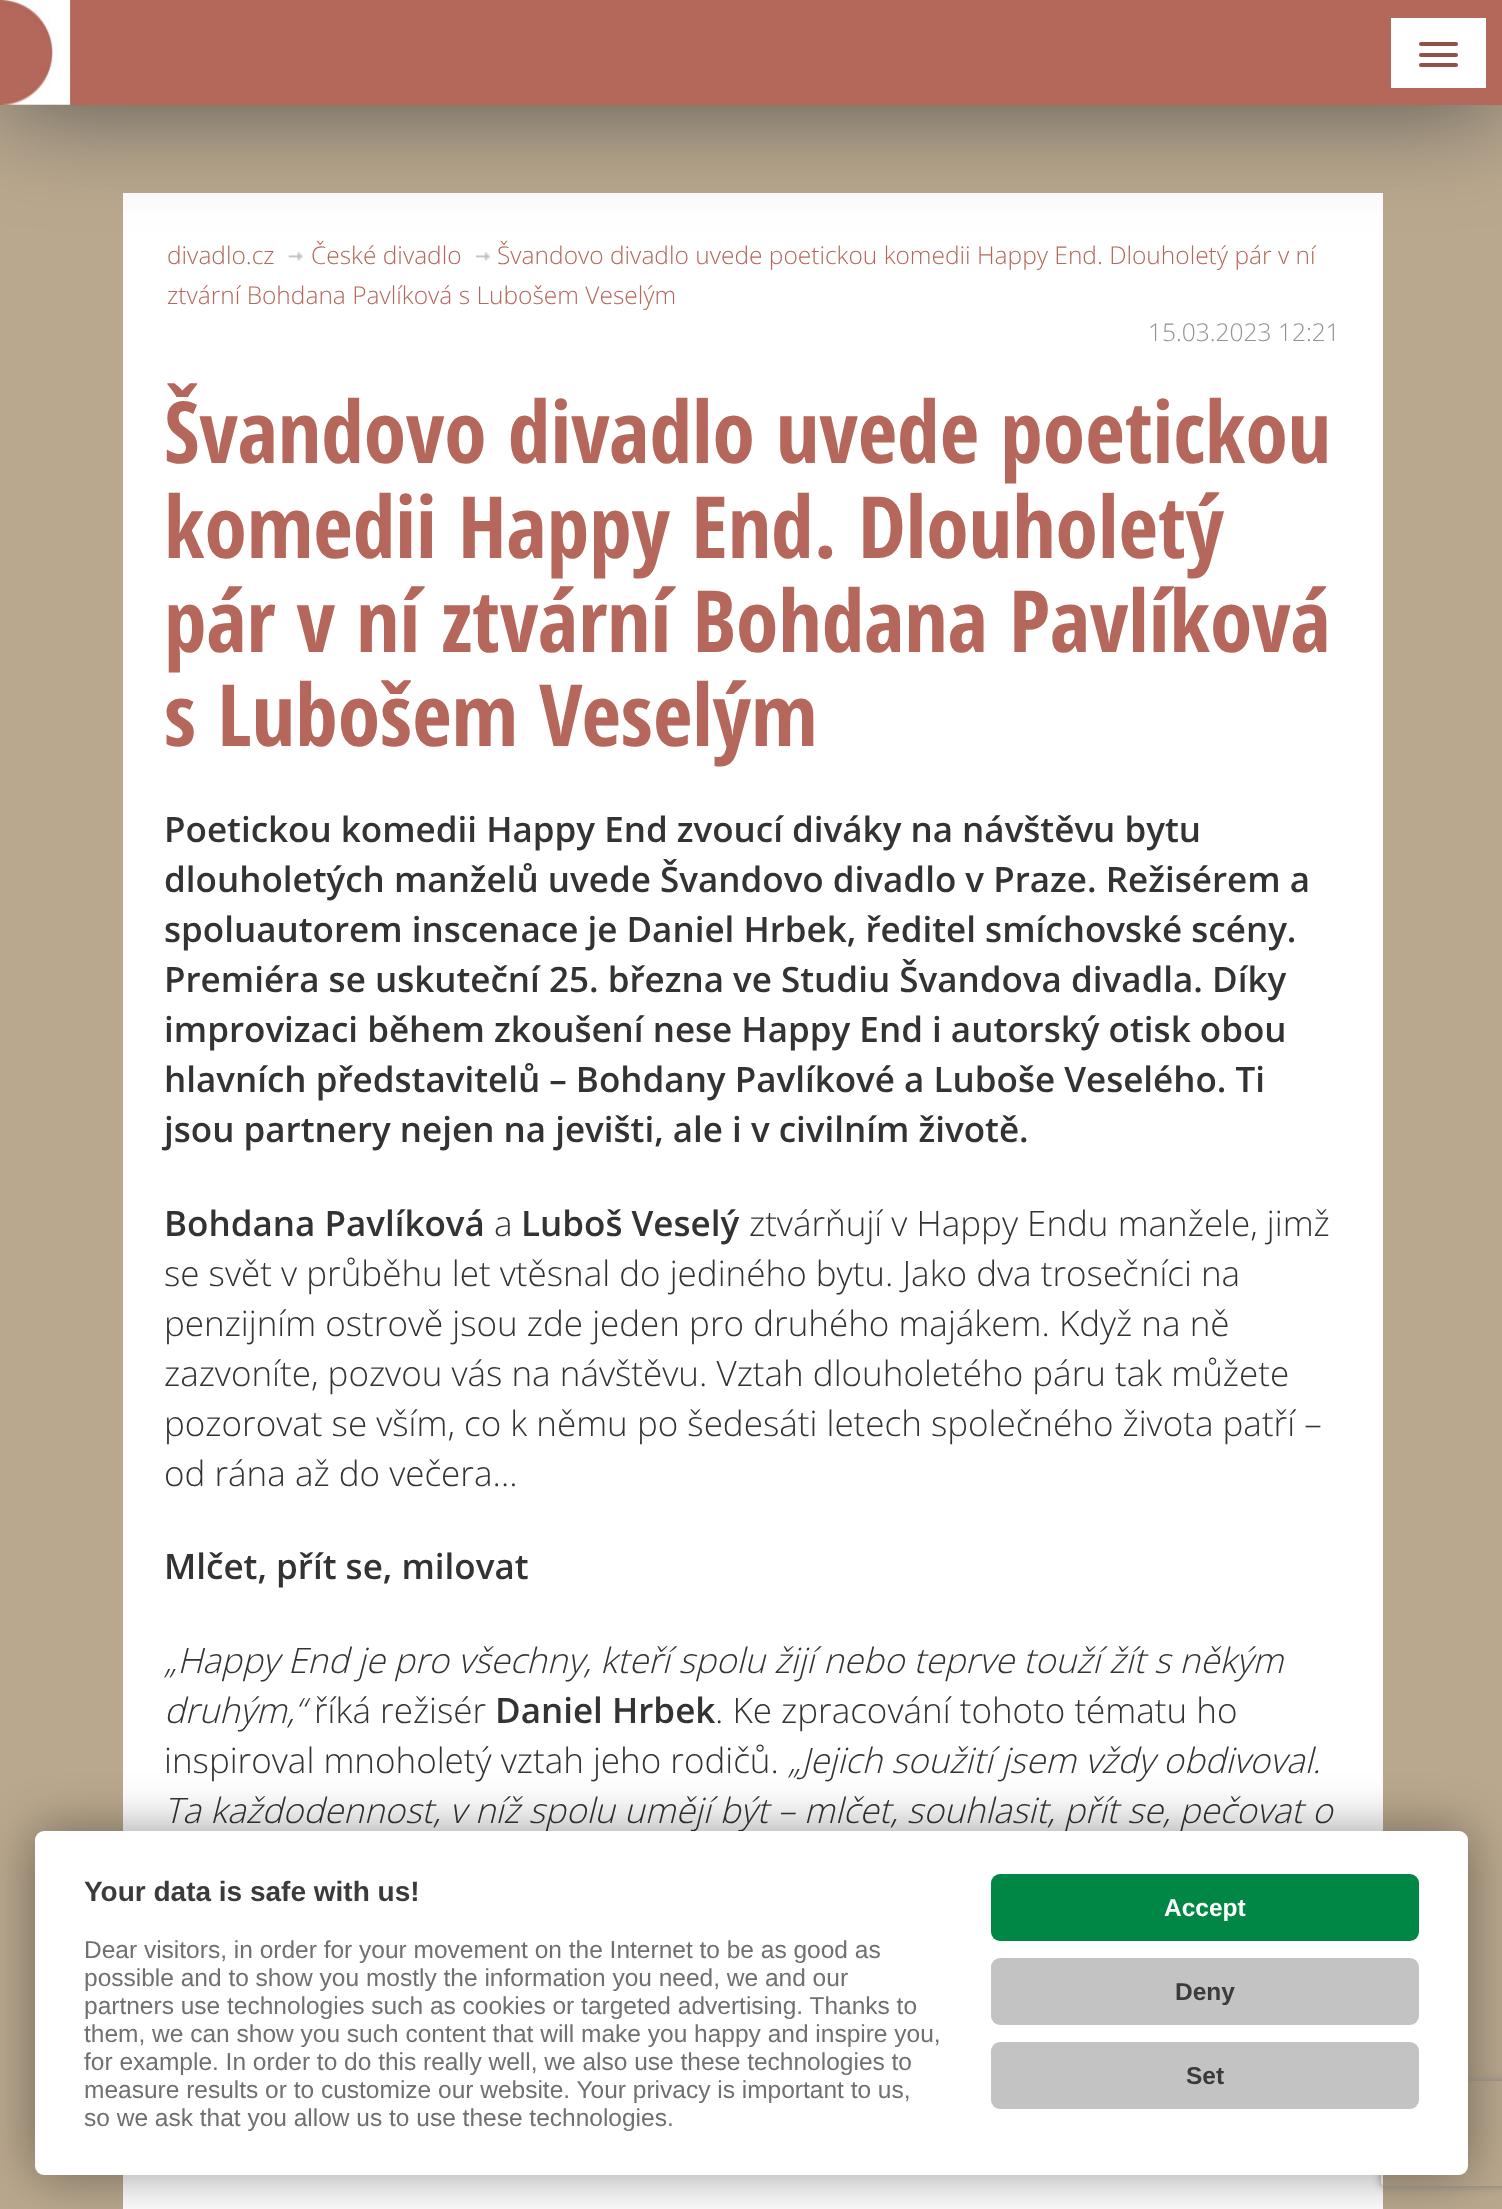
<svg xmlns="http://www.w3.org/2000/svg" width="1502" height="2209" viewBox="0 0 1502 2209">
  <style>
    .t1 { font: 300 24.5px Open Sans; fill: #b4675a; }
    .t2 { font: 300 24.5px Open Sans; fill: #929292; }
    .t3 { font: bold 85.75px Open Sans Condensed; fill: #b4675a; }
    .t4 { font: 600 35px Open Sans; fill: #333; }
    .t5 { font: 300 35px Open Sans; fill: #333; }
    .t6 { font: italic 300 35px Open Sans; fill: #333; }
    .t7 { font: bold 28px Liberation Sans; fill: #3b3b3b; }
    .t8 { font: 24.5px Liberation Sans; fill: #707070; }
    .t9 { font: bold 24.5px Liberation Sans; fill: #fff; }
    .t10 { font: bold 24.5px Liberation Sans; fill: #3b3b3b; }
  </style>
  <defs>
    <clipPath id="clip1"><path d="M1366 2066H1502V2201H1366ZM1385 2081H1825C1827 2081 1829 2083 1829 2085V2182C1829 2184 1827 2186 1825 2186H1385C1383 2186 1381 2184 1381 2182V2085C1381 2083 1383 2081 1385 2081Z" clip-rule="evenodd"/></clipPath>
  </defs>
  <rect width="100%" height="100%" fill="#baa88e"/>
  <rect x="123" y="193" width="1260" height="2016" fill="#fff"/>
  <image x="288" y="252" width="15" height="9" href="images/2.png"/>
  <image x="476" y="252" width="14" height="9" href="images/3.png"/>
  <rect x="0" y="0" width="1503" height="105" fill="#4f4f4f" filter="blur(52.5px)"/>
  <rect x="0" y="0" width="1502" height="105" fill="#b4685a"/>
  <image x="1" y="0" width="70" height="105" href="images/1.png"/>
  <rect x="1391" y="18" width="95" height="70" fill="#fff"/>
  <rect x="1419" y="42" width="39" height="4" rx="2" fill="#915149"/>
  <rect x="1419" y="53" width="39" height="4" rx="2" fill="#915149"/>
  <rect x="1419" y="63" width="39" height="4" rx="2" fill="#915149"/>
  <text x="167" y="264" class="t1">divadlo.cz</text>
  <text x="311" y="264" class="t1">České divadlo</text>
  <text x="497" y="264" class="t1">Švandovo divadlo uvede poetickou komedii Happy End. Dlouholetý pár v ní</text>
  <text x="167" y="304" class="t1">ztvární Bohdana Pavlíková s Lubošem Veselým</text>
  <text x="1148" y="341" class="t2">15.03.2023 12:21</text>
  <text x="164" y="463" class="t3">Švandovo divadlo uvede poetickou</text>
  <text x="164" y="558" class="t3">komedii Happy End. Dlouholetý</text>
  <text x="164" y="652" class="t3">pár v ní ztvární Bohdana Pavlíková</text>
  <text x="164" y="746" class="t3">s Lubošem Veselým</text>
  <text x="164" y="842" class="t4">Poetickou komedii Happy End zvoucí diváky na návštěvu bytu</text>
  <text x="164" y="892" class="t4">dlouholetých manželů uvede Švandovo divadlo v Praze. Režisérem a</text>
  <text x="164" y="942" class="t4">spoluautorem inscenace je Daniel Hrbek, ředitel smíchovské scény.</text>
  <text x="164" y="992" class="t4">Premiéra se uskuteční 25. března ve Studiu Švandova divadla. Díky</text>
  <text x="164" y="1042" class="t4">improvizaci během zkoušení nese Happy End i autorský otisk obou</text>
  <text x="164" y="1092" class="t4">hlavních představitelů – Bohdany Pavlíkové a Luboše Veselého. Ti</text>
  <text x="164" y="1142" class="t4">jsou partnery nejen na jevišti, ale i v civilním životě.</text>
  <text x="164" y="1236" class="t4">Bohdana Pavlíková</text>
  <text x="494" y="1236" class="t5">a</text>
  <text x="521" y="1236" class="t4">Luboš Veselý</text>
  <text x="749" y="1236" class="t5">ztvárňují v Happy Endu manžele, jimž</text>
  <text x="164" y="1286" class="t5">se svět v průběhu let vtěsnal do jediného bytu. Jako dva trosečníci na</text>
  <text x="164" y="1336" class="t5">penzijním ostrově jsou zde jeden pro druhého majákem. Když na ně</text>
  <text x="164" y="1386" class="t5">zazvoníte, pozvou vás na návštěvu. Vztah dlouholetého páru tak můžete</text>
  <text x="164" y="1436" class="t5">pozorovat se vším, co k němu po šedesáti letech společného života patří –</text>
  <text x="164" y="1486" class="t5">od rána až do večera…</text>
  <text x="164" y="1579" class="t4">Mlčet, přít se, milovat</text>
  <text x="164" y="1673" class="t6">„Happy End je pro všechny, kteří spolu žijí nebo teprve touží žít s někým</text>
  <text x="164" y="1723" class="t6">druhým,“</text>
  <text x="314" y="1723" class="t5">říká režisér</text>
  <text x="495" y="1723" class="t4">Daniel Hrbek</text>
  <text x="715" y="1723" class="t5">. Ke zpracování tohoto tématu ho</text>
  <text x="164" y="1773" class="t5">inspiroval mnoholetý vztah jeho rodičů.</text>
  <text x="788" y="1773" class="t6">„Jejich soužití jsem vždy obdivoval.</text>
  <text x="164" y="1823" class="t6">Ta každodennost, v níž spolu umějí být – mlčet, souhlasit, přít se, pečovat o</text>
  <rect x="35" y="1831" width="1433" height="344" rx="9" fill="#00000066" filter="blur(26px)"/>
  <g clip-path="url(#clip1)">
    <rect x="1381" y="2081" width="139" height="105" rx="4" fill="#808080" filter="blur(4.5px)"/>
  </g>
  <rect x="35" y="1831" width="1433" height="344" rx="9" fill="#fff"/>
  <text x="84" y="1901" class="t7">Your data is safe with us!</text>
  <text x="84" y="1958" class="t8">Dear visitors, in order for your movement on the Internet to be as good as</text>
  <text x="84" y="1986" class="t8">possible and to show you mostly the information you need, we and our</text>
  <text x="84" y="2014" class="t8">partners use technologies such as cookies or targeted advertising. Thanks to</text>
  <text x="84" y="2042" class="t8">them, we can show you such content that will make you happy and inspire you,</text>
  <text x="84" y="2070" class="t8">for example. In order to do this really well, we also use these technologies to</text>
  <text x="84" y="2098" class="t8">measure results or to customize our website. Your privacy is important to us,</text>
  <text x="84" y="2126" class="t8">so we ask that you allow us to use these technologies.</text>
  <rect x="991" y="1874" width="428" height="67" rx="9" fill="#008745"/>
  <text x="1164" y="1916" class="t9">Accept</text>
  <rect x="991" y="1958" width="428" height="67" rx="9" fill="#c3c3c3"/>
  <text x="1175" y="2000" class="t10">Deny</text>
  <rect x="991" y="2042" width="428" height="67" rx="9" fill="#c3c3c3"/>
  <text x="1186" y="2084" class="t10">Set</text>
</svg>
